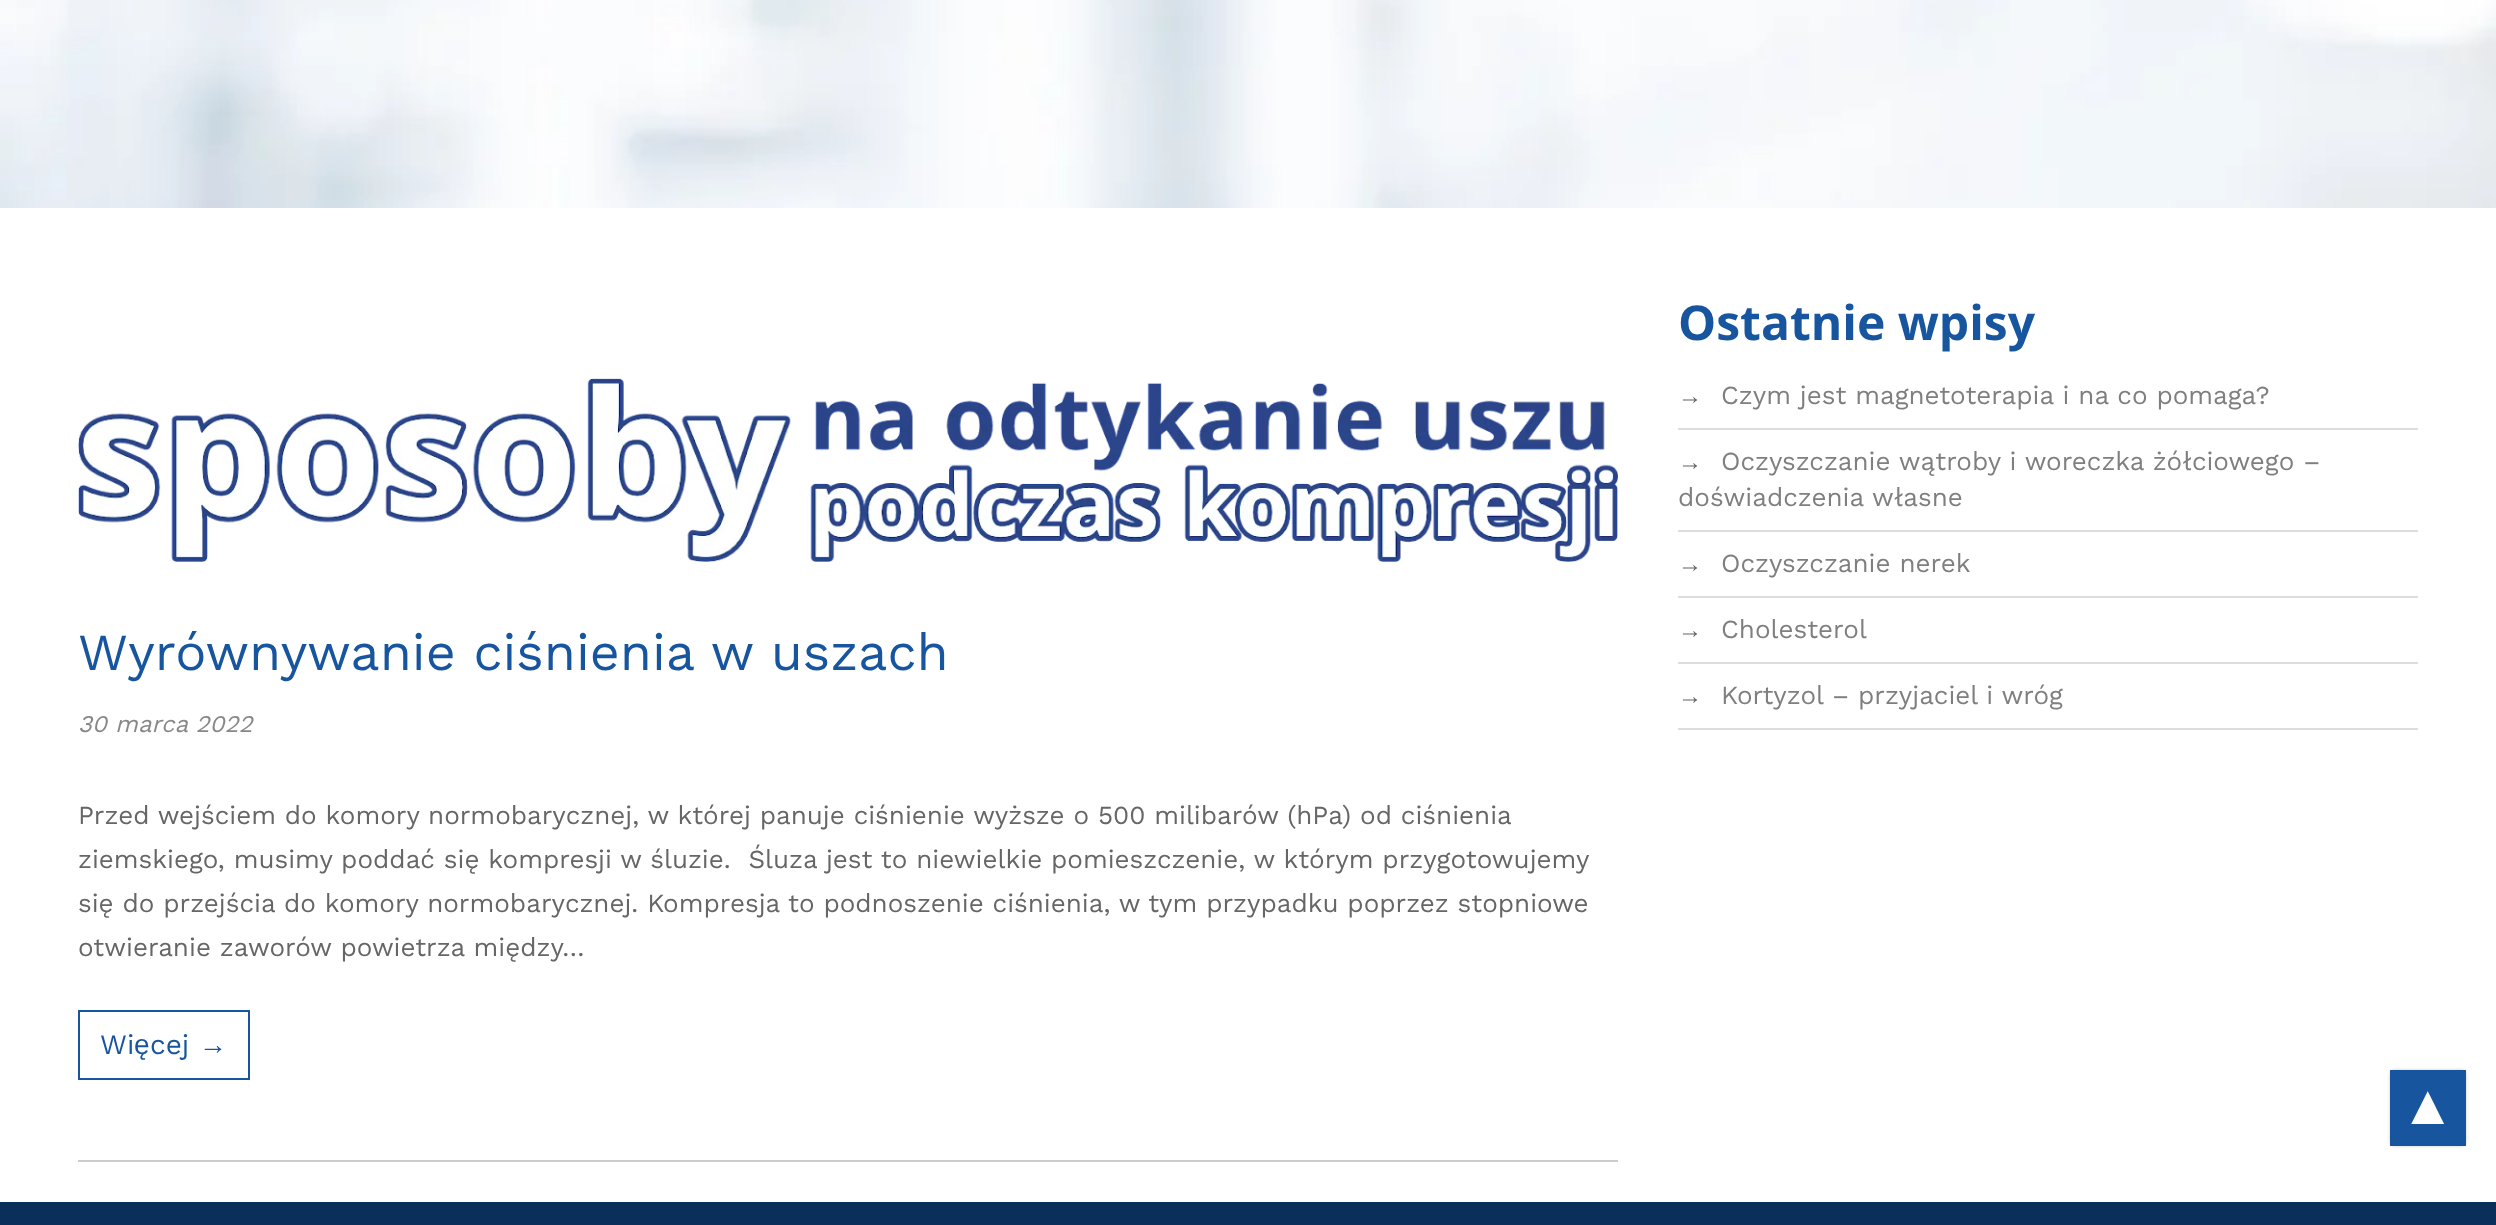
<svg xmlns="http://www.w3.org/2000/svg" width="2496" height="1225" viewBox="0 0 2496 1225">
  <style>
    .t1 { font: bold 48px Open Sans; fill: #18559f; }
    .t2 { font: 24px Liberation Sans; fill: #666; }
    .t3 { font: 26px Work Sans; fill: #7f7f7f; }
    .t4 { font: 52px Work Sans; fill: #18559f; }
    .t5 { font: italic 24px Work Sans; fill: #888; }
    .t6 { font: 26px Work Sans; fill: #666; }
    .t7 { font: 28px Work Sans; fill: #18559f; }
    .t8 { font: 28px Liberation Sans; fill: #18559f; }
    .t9 { font: 56px Liberation Sans; fill: #fff; }
  </style>
  <rect width="100%" height="100%" fill="#fff"/>
  <image x="0" y="0" width="2496" height="208" href="images/1.png"/>
  <text x="1678" y="340" class="t1">Ostatnie wpisy</text>
  <rect x="1678" y="428" width="740" height="2" fill="#ddd"/>
  <text x="1678" y="404" class="t2">→</text>
  <text x="1721" y="404" class="t3">Czym jest magnetoterapia i na co pomaga?</text>
  <rect x="1678" y="530" width="740" height="2" fill="#ddd"/>
  <text x="1678" y="470" class="t2">→</text>
  <text x="1721" y="470" class="t3">Oczyszczanie wątroby i woreczka żółciowego –</text>
  <text x="1678" y="506" class="t3">doświadczenia własne</text>
  <rect x="1678" y="596" width="740" height="2" fill="#ddd"/>
  <text x="1678" y="572" class="t2">→</text>
  <text x="1721" y="572" class="t3">Oczyszczanie nerek</text>
  <rect x="1678" y="662" width="740" height="2" fill="#ddd"/>
  <text x="1678" y="638" class="t2">→</text>
  <text x="1721" y="638" class="t3">Cholesterol</text>
  <rect x="1678" y="728" width="740" height="2" fill="#ddd"/>
  <text x="1678" y="704" class="t2">→</text>
  <text x="1721" y="704" class="t3">Kortyzol – przyjaciel i wróg</text>
  <rect x="78" y="1160" width="1540" height="2" fill="#ccc"/>
  <image x="78" y="378" width="1540" height="184" href="images/2.png"/>
  <text x="78" y="670" class="t4">Wyrównywanie ciśnienia w uszach</text>
  <text x="78" y="732" class="t5">30 marca 2022</text>
  <text x="78" y="824" class="t6">Przed wejściem do komory normobarycznej, w której panuje ciśnienie wyższe o 500 milibarów (hPa) od ciśnienia</text>
  <text x="78" y="868" class="t6" xml:space="preserve">ziemskiego, musimy poddać się kompresji w śluzie.  Śluza jest to niewielkie pomieszczenie, w którym przygotowujemy</text>
  <text x="78" y="912" class="t6">się do przejścia do komory normobarycznej. Kompresja to podnoszenie ciśnienia, w tym przypadku poprzez stopniowe</text>
  <text x="78" y="956" class="t6">otwieranie zaworów powietrza między…</text>
  <rect x="79" y="1011" width="170" height="68" fill="none" stroke="#18559f" stroke-width="2"/>
  <text x="100" y="1054" class="t7">Wi</text>
  <text x="134" y="1054" class="t8">ę</text>
  <text x="150" y="1054" class="t7">cej</text>
  <text x="199" y="1054" class="t8">→</text>
  <rect x="0" y="1202" width="2496" height="23" fill="#0a2f5b"/>
  <rect x="2392" y="1072" width="72" height="72" fill="#555" filter="blur(2px)"/>
  <rect x="2390" y="1070" width="76" height="76" fill="#18559f"/>
  <text x="2400" y="1124" class="t9">▲</text>
</svg>
